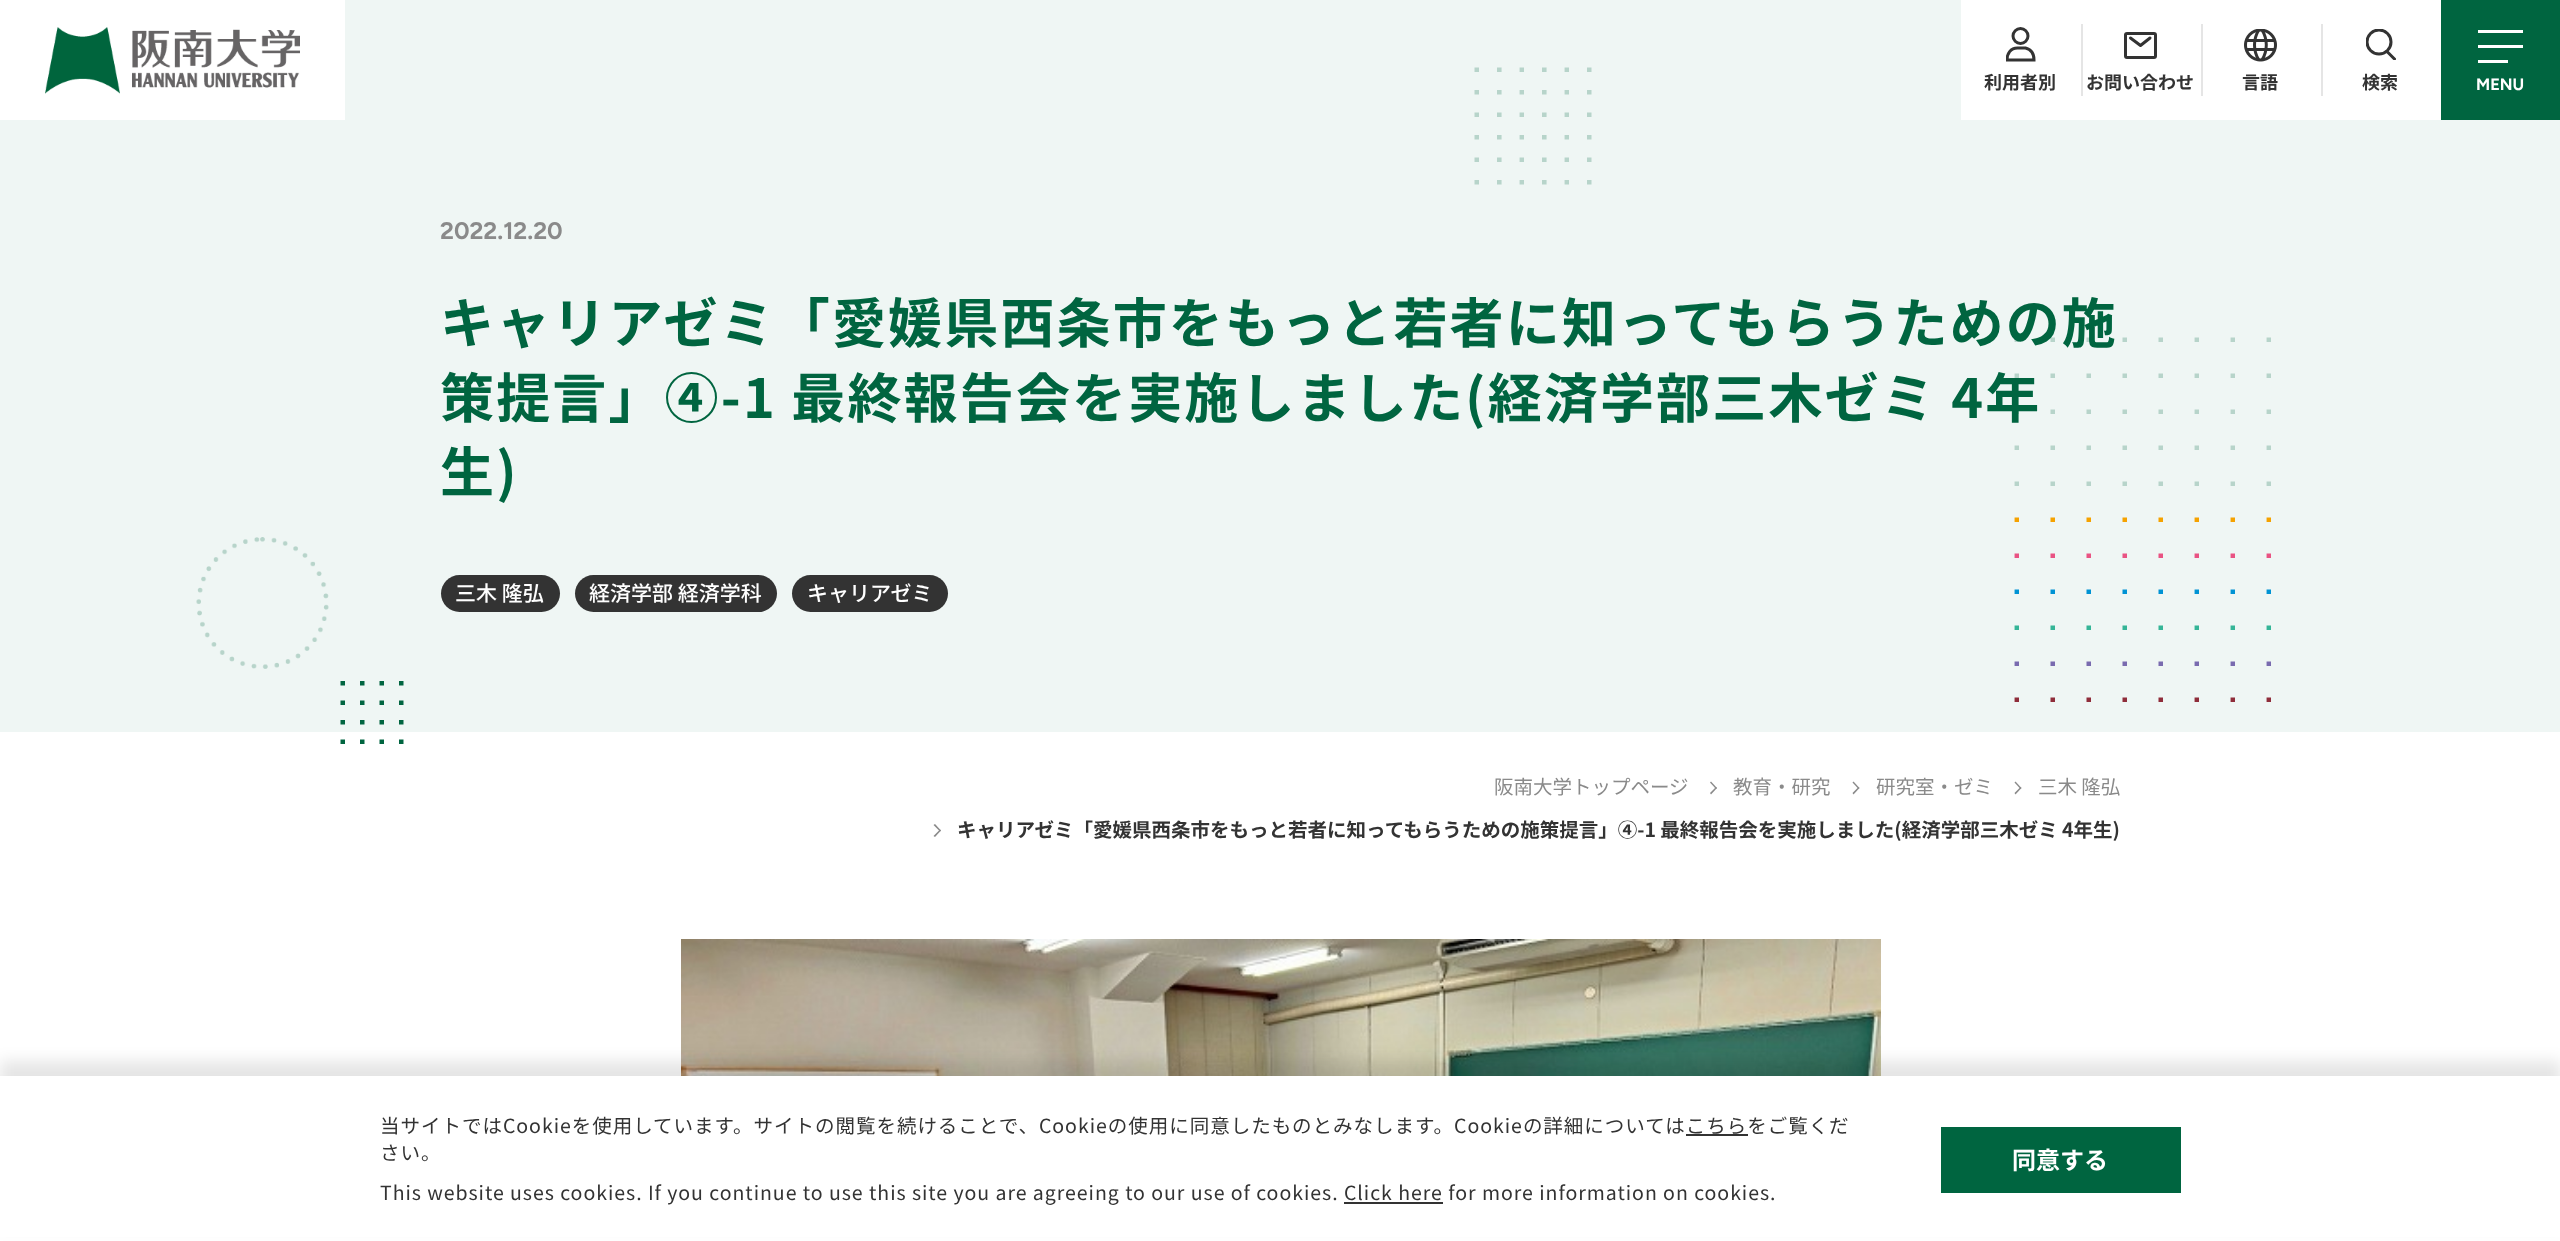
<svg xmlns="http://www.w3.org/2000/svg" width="2560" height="1241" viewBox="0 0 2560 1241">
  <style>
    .t1 { font: bold 18px Noto Sans JP; fill: #333; }
    .t2 { font: bold 16.5px Figtree; fill: #fff; }
    .t3 { font: bold 24px Figtree; fill: #8a8a8a; }
    .t4 { font: bold 54px Noto Sans JP; letter-spacing: 2.15px; fill: #006540; }
    .t5 { font: 500 21px Noto Sans JP; fill: #fff; }
    .t6 { font: 19.5px Noto Sans JP; fill: #8a8a8a; }
    .t7 { font: bold 19.5px Noto Sans JP; fill: #333; }
    .t8 { font: 19.5px Noto Sans JP; letter-spacing: 0.98px; fill: #333; }
    .t9 { font: bold 24px Noto Sans JP; fill: #fff; }
  </style>
  <defs>
    <clipPath id="clip1"><rect x="2006" y="27" width="30" height="35"/></clipPath>
    <clipPath id="clip2"><rect x="2366" y="29" width="30" height="31"/></clipPath>
  </defs>
  <rect width="100%" height="100%" fill="#fff"/>
  <rect x="0" y="0" width="2560" height="732" fill="#eff6f4"/>
  <image x="0" y="0" width="345" height="120" href="images/1.png"/>
  <rect x="1961" y="0" width="480" height="120" fill="#fff"/>
  <circle cx="2020.5" cy="36" r="7.5" fill="none" stroke="#333" stroke-width="3"/>
  <g clip-path="url(#clip1)">
    <path d="M2017.5 48H2025.5C2031.5 49.5 2034 54.5 2034 60H2007C2007 53.5 2010.5 48 2017.5 48Z" fill="none" stroke="#333" stroke-width="3"/>
  </g>
  <text x="1984" y="89" class="t1">利用者別</text>
  <rect x="2081" y="24" width="2" height="72" fill="#e5e5e5"/>
  <rect x="2125.5" y="33.5" width="30" height="24" rx="1.5" fill="none" stroke="#333" stroke-width="3"/>
  <path d="M2130.5 38L2140.5 45.5L2150 38" fill="none" stroke="#333" stroke-width="3" stroke-linecap="round" stroke-linejoin="round"/>
  <text x="2086" y="89" class="t1">お問い合わせ</text>
  <rect x="2201" y="24" width="2" height="72" fill="#e5e5e5"/>
  <image x="2244" y="29" width="33" height="33" href="images/2.png"/>
  <text x="2242" y="89" class="t1">言語</text>
  <rect x="2321" y="24" width="2" height="72" fill="#e5e5e5"/>
  <g clip-path="url(#clip2)">
    <circle cx="2379" cy="42" r="12" fill="none" stroke="#333" stroke-width="3"/>
    <path d="M2387 51.5L2394.5 59" fill="none" stroke="#333" stroke-width="3" stroke-linecap="round"/>
  </g>
  <text x="2362" y="89" class="t1">検索</text>
  <rect x="2441" y="0" width="119" height="120" fill="#006540"/>
  <rect x="2478" y="30" width="45" height="3" fill="#fff"/>
  <rect x="2478" y="45" width="45" height="3" fill="#fff"/>
  <rect x="2478" y="60" width="30" height="3" fill="#fff"/>
  <text x="2476" y="90" class="t2">MENU</text>
  <image x="1474" y="67" width="118" height="118" href="images/3.png"/>
  <text x="440" y="239" class="t3">2022.12.20</text>
  <image x="196" y="537" width="133" height="132" href="images/4.png"/>
  <image x="2014" y="337" width="257" height="365" href="images/5.png"/>
  <text x="440" y="343" class="t4">キャリアゼミ「愛媛県西条市をもっと若者に知ってもらうための施</text>
  <text x="440" y="418" class="t4">策提言」④-1 最終報告会を実施しました(経済学部三木ゼミ 4年</text>
  <text x="440" y="492" class="t4">生)</text>
  <rect x="441" y="575" width="119" height="37" rx="18.5" fill="#333"/>
  <text x="455" y="601" class="t5">三木 隆弘</text>
  <rect x="575" y="575" width="202" height="37" rx="18.5" fill="#333"/>
  <text x="589" y="601" class="t5">経済学部 経済学科</text>
  <rect x="792" y="575" width="156" height="37" rx="18.5" fill="#333"/>
  <text x="807" y="601" class="t5">キャリアゼミ</text>
  <image x="340" y="681" width="64" height="63" href="images/6.png"/>
  <text x="1494" y="794" class="t6">阪南大学トップページ</text>
  <path d="M1711 781.5L1717 788L1716 789L1710 782.5Z" fill="#8a8a8a"/>
  <path d="M1716 787L1717 788L1711 794.5L1710 793Z" fill="#8a8a8a"/>
  <text x="1733" y="794" class="t6">教育・研究</text>
  <path d="M1853.5 781.5L1859.5 788L1858.5 789L1852.5 782.5Z" fill="#8a8a8a"/>
  <path d="M1858.5 787L1859.5 788L1853.5 794.5L1852.5 793Z" fill="#8a8a8a"/>
  <text x="1876" y="794" class="t6">研究室・ゼミ</text>
  <path d="M2015.5 781.5L2021.5 788L2020.5 789L2014.5 782.5Z" fill="#8a8a8a"/>
  <path d="M2020.5 787L2021.5 788L2015.5 794.5L2014.5 793Z" fill="#8a8a8a"/>
  <text x="2038" y="794" class="t6">三木 隆弘</text>
  <path d="M935 824L941 830.5L940 831.5L933.5 825Z" fill="#8a8a8a"/>
  <path d="M940 829.5L941 830.5L935 837L933.5 836Z" fill="#8a8a8a"/>
  <text x="957" y="837" class="t7">キャリアゼミ「愛媛県西条市をもっと若者に知ってもらうための施策提言」④-1 最終報告会を実施しました(経済学部三木ゼミ 4年生)</text>
  <image x="681" y="939" width="1200" height="137" href="images/7.png"/>
  <rect x="0" y="1061" width="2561" height="166" fill="#0000001a" filter="blur(7.5px)"/>
  <rect x="0" y="1076" width="2560" height="161" fill="#fff"/>
  <text x="380" y="1133" class="t8">当サイトではCookieを使用しています。サイトの閲覧を続けることで、Cookieの使用に同意したものとみなします。Cookieの詳細についてはこちらをご覧くだ</text>
  <rect x="1686" y="1134" width="62" height="2" fill="#333"/>
  <text x="380" y="1160" class="t8">さい。</text>
  <text x="380" y="1200" class="t8">This website uses cookies. If you continue to use this site you are agreeing to our use of cookies. Click here for more information on cookies.</text>
  <rect x="1344" y="1202" width="99" height="2" fill="#333"/>
  <rect x="1941" y="1127" width="240" height="66" fill="#006540"/>
  <text x="2012" y="1169" class="t9">同意する</text>
</svg>
